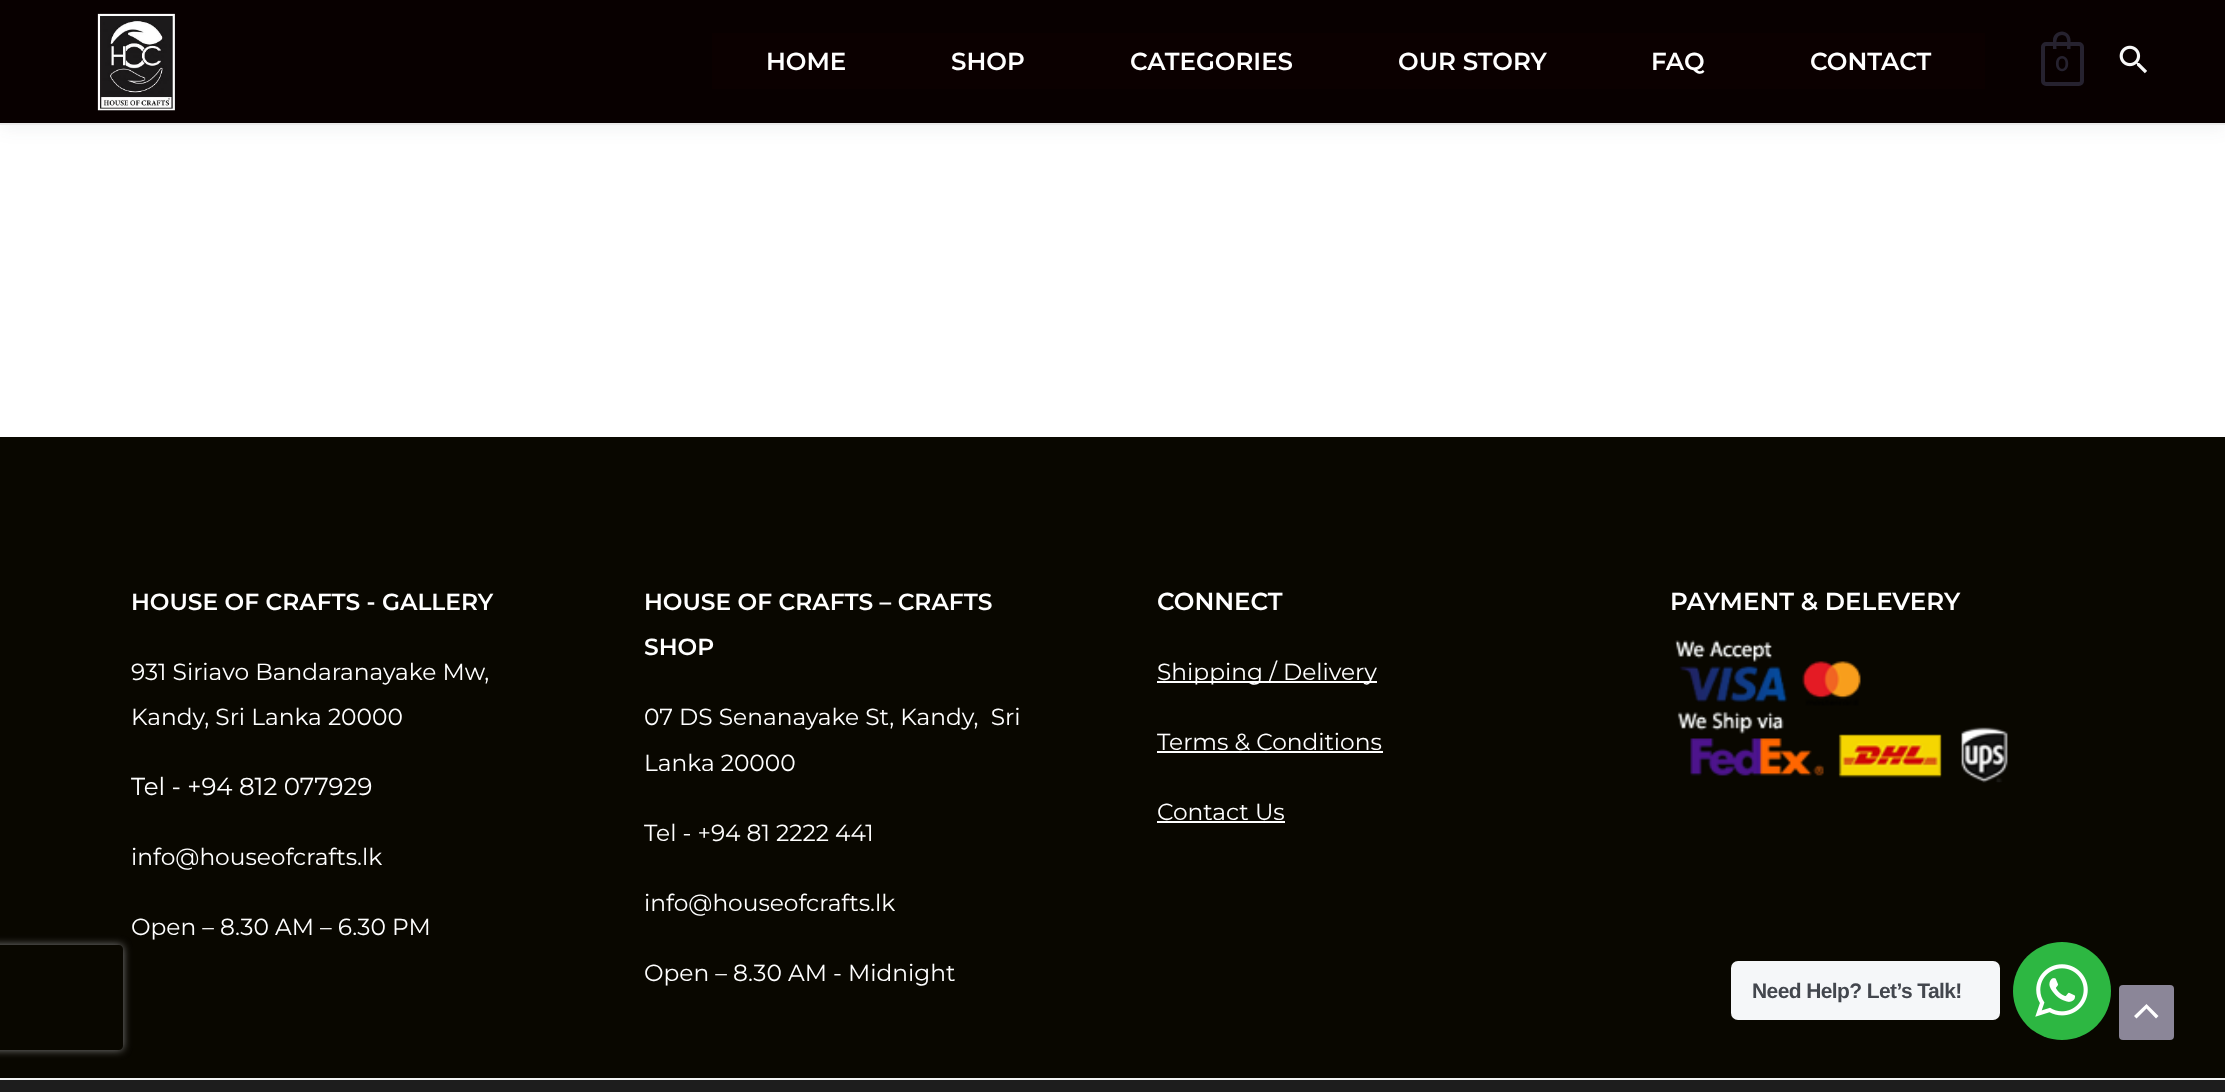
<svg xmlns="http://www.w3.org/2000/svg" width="2225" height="1092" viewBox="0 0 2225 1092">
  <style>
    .t1 { font: 600 24.5px Montserrat; fill: #fff; }
    .t2 { font: 600 21px Montserrat; fill: #26222f; }
    .t3 { font: 600 23.3px Montserrat; fill: #fff; }
    .t4 { font: 23.3px Montserrat; fill: #fff; }
    .t5 { font: 24.5px Montserrat; fill: #fff; }
    .t6 { font: bold 21px Liberation Sans; letter-spacing: -0.6px; fill: #43474e; }
  </style>
  <defs>
    <clipPath id="clip1"><path d="M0 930H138V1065H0ZM-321 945H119C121 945 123 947 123 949V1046C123 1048 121 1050 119 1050H-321C-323 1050-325 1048-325 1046V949C-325 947-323 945-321 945Z" clip-rule="evenodd"/></clipPath>
  </defs>
  <rect width="100%" height="100%" fill="#fff"/>
  <rect x="0" y="4" width="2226" height="124" fill="#24324212" filter="blur(9px)"/>
  <rect x="0" y="0" width="2225" height="123" fill="#080000"/>
  <rect x="0" y="123" width="2225" height="2" fill="#eaeaea"/>
  <image x="97" y="13" width="78" height="98" href="images/1.png"/>
  <rect x="712" y="33" width="1273" height="56" fill="#0b0000"/>
  <text x="766" y="70" class="t1">HOME</text>
  <text x="951" y="70" class="t1">SHOP</text>
  <text x="1130" y="70" class="t1">CATEGORIES</text>
  <text x="1398" y="70" class="t1">OUR STORY</text>
  <text x="1651" y="70" class="t1">FAQ</text>
  <text x="1810" y="70" class="t1">CONTACT</text>
  <rect x="2043" y="44" width="39" height="40" rx="3" fill="none" stroke="#26222f" stroke-width="4"/>
  <path d="M2062 31.5C2066.5 31.5 2070.5 35.5 2070.5 40V49H2053V40C2053 35.5 2057 31.5 2062 31.5ZM2062 35C2069 35 2067 44.5 2067 49H2056.5C2056.5 44.5 2055 35 2062 35Z" fill="#26222f" fill-rule="evenodd"/>
  <text x="2055" y="71" class="t2">0</text>
  <image x="2119" y="45" width="28" height="29" href="images/2.png"/>
  <rect x="0" y="437" width="2225" height="641" fill="#090700"/>
  <g clip-path="url(#clip1)">
    <rect x="-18" y="945" width="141" height="105" rx="4" fill="#808080" filter="blur(4.5px)"/>
  </g>
  <text x="131" y="610" class="t3">HOUSE OF CRAFTS - GALLERY</text>
  <text x="131" y="680" class="t4">931 Siriavo Bandaranayake Mw,</text>
  <text x="131" y="725" class="t4">Kandy, Sri Lanka 20000</text>
  <text x="131" y="795" class="t5">Tel - +94 812 077929</text>
  <text x="131" y="865" class="t4">info@houseofcrafts.lk</text>
  <text x="131" y="935" class="t4">Open – 8.30 AM – 6.30 PM</text>
  <text x="644" y="610" class="t3">HOUSE OF CRAFTS – CRAFTS</text>
  <text x="644" y="655" class="t3">SHOP</text>
  <text x="644" y="725" class="t4" xml:space="preserve">07 DS Senanayake St, Kandy,  Sri</text>
  <text x="644" y="771" class="t4">Lanka 20000</text>
  <text x="644" y="841" class="t4">Tel - +94 81 2222 441</text>
  <text x="644" y="911" class="t4">info@houseofcrafts.lk</text>
  <text x="644" y="981" class="t4">Open – 8.30 AM - Midnight</text>
  <text x="1157" y="610" class="t1">CONNECT</text>
  <rect x="1157" y="681" width="220" height="2" fill="#fff"/>
  <text x="1157" y="680" class="t4">Shipping / Delivery</text>
  <text x="1157" y="750" class="t4">Terms &amp; Conditions</text>
  <rect x="1157" y="751" width="226" height="2" fill="#fff"/>
  <text x="1157" y="820" class="t4">Contact Us</text>
  <rect x="1157" y="821" width="128" height="2" fill="#fff"/>
  <text x="1670" y="610" class="t1">PAYMENT &amp; DELEVERY</text>
  <image x="1675" y="640" width="333" height="143" href="images/3.png"/>
  <rect x="0" y="1080" width="2225" height="12" fill="#1d1d1d"/>
  <rect x="0" y="1078" width="2225" height="2" fill="#f3f5f6"/>
  <rect x="1731" y="961" width="269" height="59" rx="7" fill="#f5f7f9"/>
  <text x="1752" y="998" class="t6">Need Help? Let’s Talk!</text>
  <circle cx="2062" cy="991" r="49" fill="#2db742"/>
  <image x="2035" y="964" width="53" height="53" href="images/4.png"/>
  <rect x="2119" y="985" width="55" height="55" rx="4" fill="#8b8698"/>
  <path d="M2158.5 1016L2146.5 1004L2134 1016L2136.5 1018.5L2146.5 1008.5L2156 1018.5Z" fill="#fff"/>
</svg>
